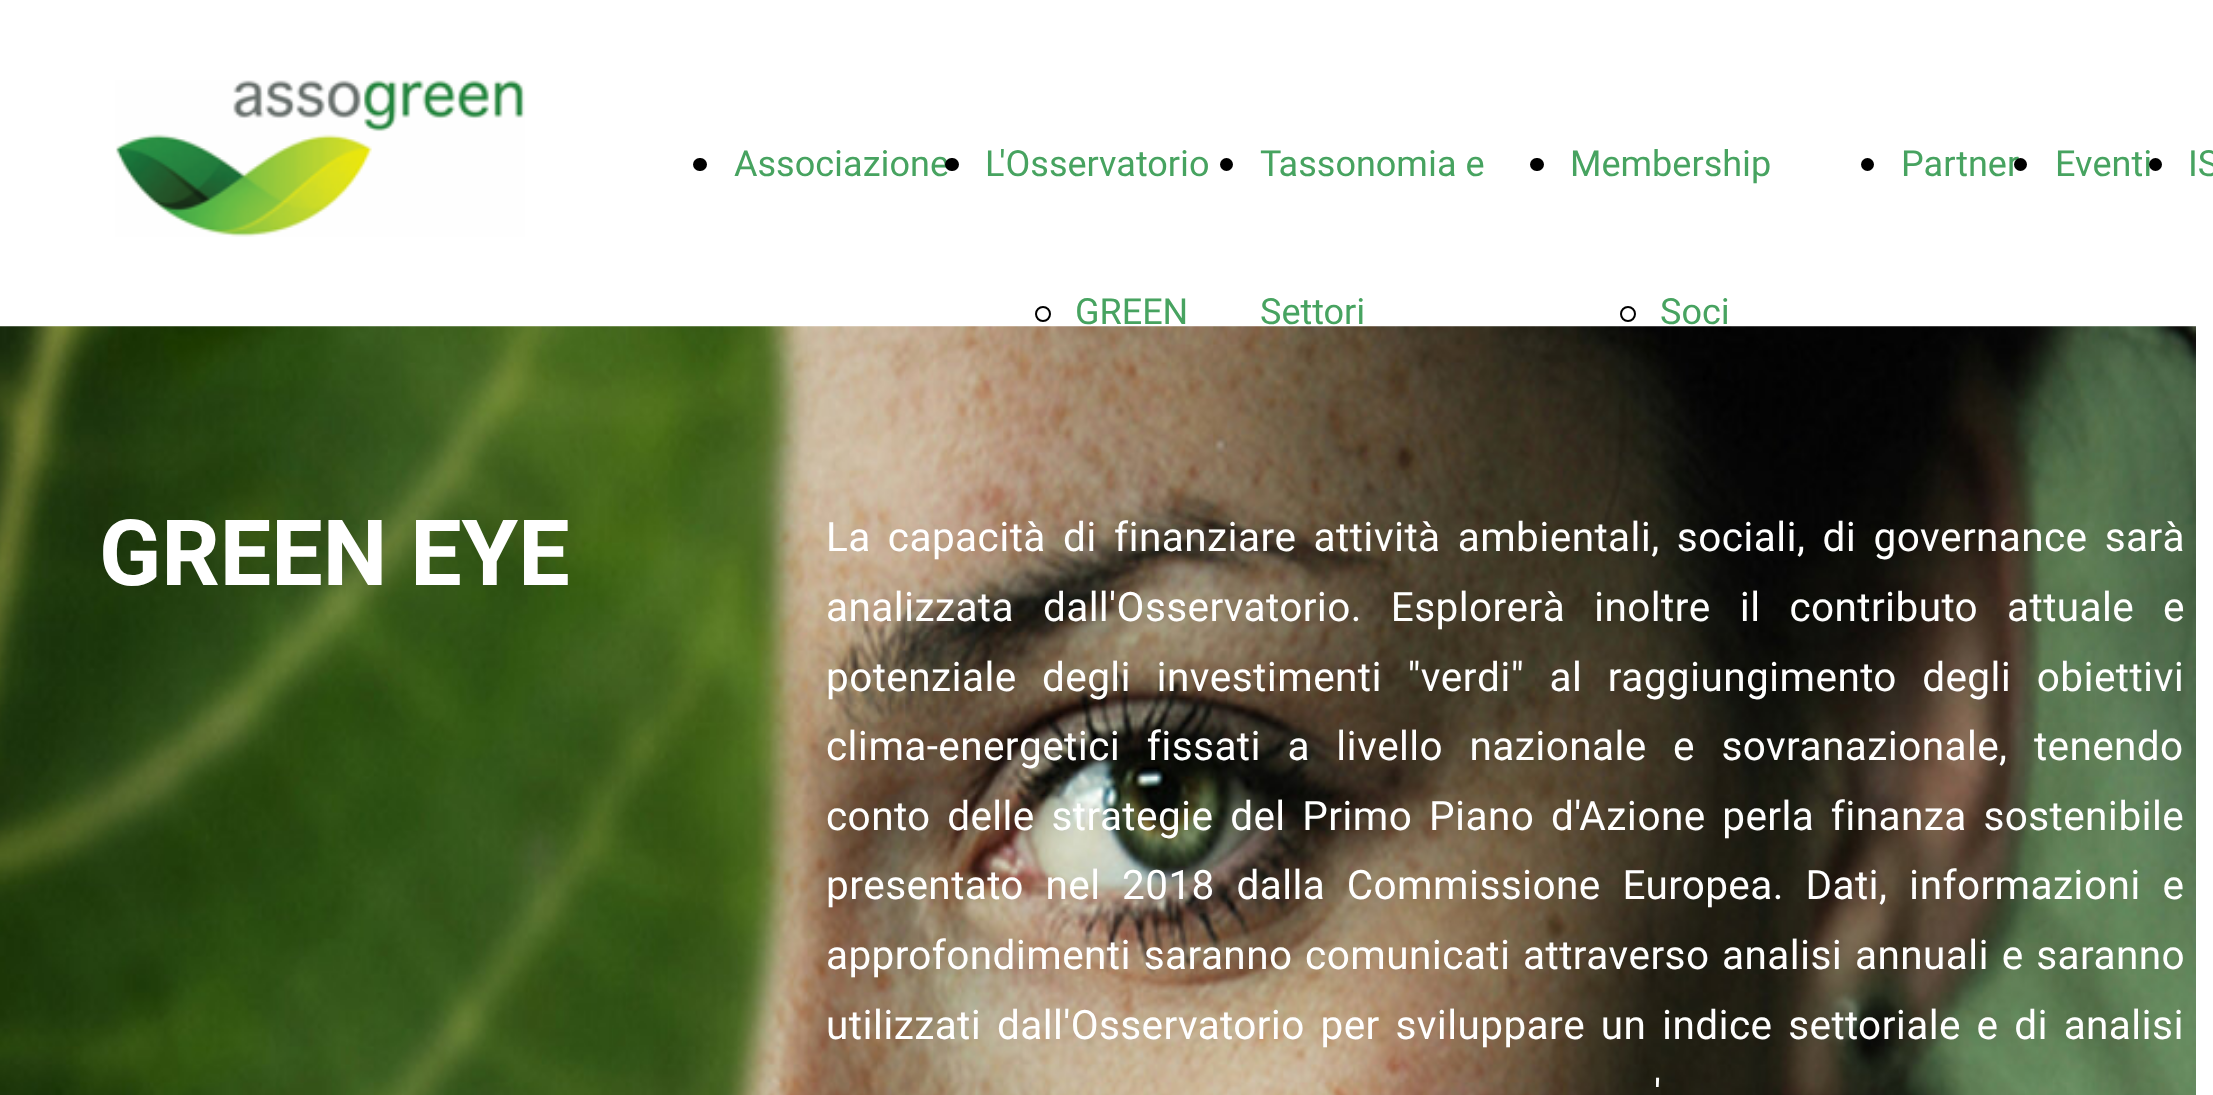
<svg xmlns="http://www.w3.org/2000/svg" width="2213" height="1095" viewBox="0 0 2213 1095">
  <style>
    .t1 { font: 36px Heebo; fill: #47a360; }
    .t2 { font: bold 91.5px Heebo; fill: #fff; }
    .t3 { font: 40.5px Heebo; letter-spacing: 0.4px; fill: #fff; }
  </style>
  <rect width="100%" height="100%" fill="#fff"/>
  <image x="115" y="80" width="410" height="157" href="images/1.png"/>
  <rect x="693" y="158" width="14" height="13" rx="6.5" fill="#000"/>
  <text x="734" y="176" class="t1">Associazione</text>
  <rect x="945" y="158" width="14" height="13" rx="6.5" fill="#000"/>
  <text x="985" y="176" class="t1">L'Osservatorio</text>
  <circle cx="1043" cy="314" r="7" fill="none" stroke="#000" stroke-width="2"/>
  <text x="1075" y="324" class="t1">GREEN</text>
  <circle cx="1226.5" cy="164.5" r="6.5" fill="#000"/>
  <text x="1260" y="176" class="t1">Tassonomia e</text>
  <text x="1260" y="324" class="t1">Settori</text>
  <rect x="1530" y="158" width="14" height="13" rx="6.5" fill="#000"/>
  <text x="1570" y="176" class="t1">Membership</text>
  <circle cx="1628" cy="314" r="7" fill="none" stroke="#000" stroke-width="2"/>
  <text x="1660" y="324" class="t1">Soci</text>
  <circle cx="1867.5" cy="164.5" r="6.5" fill="#000"/>
  <text x="1901" y="176" class="t1">Partner</text>
  <circle cx="2020.5" cy="164.5" r="6.5" fill="#000"/>
  <text x="2055" y="176" class="t1">Eventi</text>
  <circle cx="2155.5" cy="164.5" r="6.5" fill="#000"/>
  <text x="2188" y="176" class="t1">IS</text>
  <image x="0" y="326" width="2196" height="769" href="images/2.png"/>
  <text x="99" y="585" class="t2">GREEN EYE</text>
  <text x="826" y="551" word-spacing="6.75" class="t3">La capacità di finanziare attività ambientali, sociali, di governance sarà</text>
  <text x="826" y="621" word-spacing="18.5" class="t3">analizzata dall'Osservatorio. Esplorerà inoltre il contributo attuale e</text>
  <text x="826" y="691" word-spacing="15" class="t3">potenziale degli investimenti "verdi" al raggiungimento degli obiettivi</text>
  <text x="826" y="760" word-spacing="16" class="t3">clima-energetici fissati a livello nazionale e sovranazionale, tenendo</text>
  <text x="826" y="830" word-spacing="6.25" class="t3">conto delle strategie del Primo Piano d'Azione perla finanza sostenibile</text>
  <text x="826" y="899" word-spacing="11.25" class="t3">presentato nel 2018 dalla Commissione Europea. Dati, informazioni e</text>
  <text x="826" y="969" word-spacing="2.25" class="t3">approfondimenti saranno comunicati attraverso analisi annuali e saranno</text>
  <text x="826" y="1039" word-spacing="5.25" class="t3">utilizzati dall'Osservatorio per sviluppare un indice settoriale e di analisi</text>
  <text x="1654" y="1108" word-spacing="3" class="t3">'</text>
</svg>
